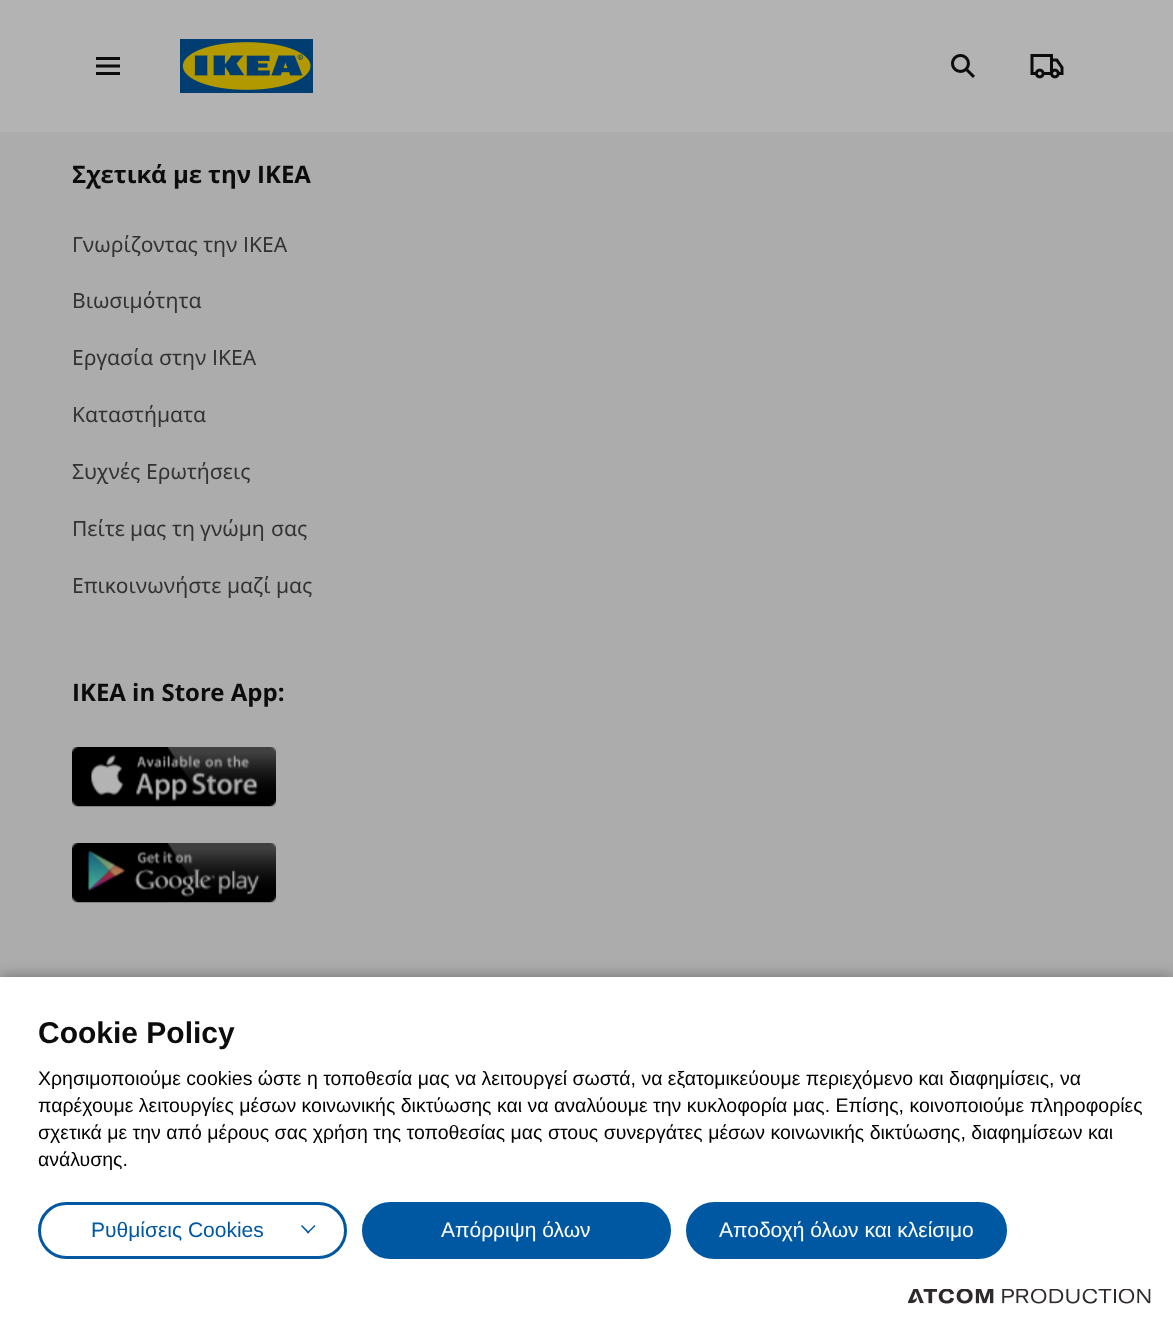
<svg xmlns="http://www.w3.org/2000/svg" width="1173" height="1329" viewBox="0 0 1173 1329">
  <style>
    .t1 { font: bold 24px Noto Sans; fill: #0c0c0c; }
    .t2 { font: bold 24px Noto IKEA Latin; fill: #0c0c0c; }
    .t3 { font: 21px Noto Sans; fill: #323232; }
    .t4 { font: 21px Noto IKEA Latin; fill: #323232; }
    .t5 { font: bold 30px Liberation Sans; fill: #0c0c0c; }
    .t6 { font: 19.5px Liberation Sans; fill: #000; }
    .t7 { font: 21px Liberation Sans; fill: #0058a3; }
    .t8 { font: 21px Liberation Sans; fill: #fff; }
  </style>
  <rect width="100%" height="100%" fill="#acacac"/>
  <rect x="0" y="0" width="1173" height="132" fill="#b3b3b3"/>
  <image x="96" y="57" width="24" height="18" href="images/1.png"/>
  <image x="180" y="39" width="133" height="54" href="images/2.png"/>
  <image x="951" y="54" width="24" height="24" href="images/3.png"/>
  <image x="1030" y="54" width="34" height="25" href="images/4.png"/>
  <text x="72" y="183" class="t1">Σχετικά</text>
  <text x="173" y="183" class="t1">με</text>
  <text x="208" y="183" class="t1">την</text>
  <text x="257" y="183" class="t2">IKEA</text>
  <text x="72" y="252" class="t3">Γνωρίζοντας</text>
  <text x="203" y="252" class="t3">την</text>
  <text x="243" y="252" class="t4">IKEA</text>
  <text x="72" y="308" class="t3">Βιωσιμότητα</text>
  <text x="72" y="365" class="t3">Εργασία</text>
  <text x="159" y="365" class="t3">στην</text>
  <text x="212" y="365" class="t4">IKEA</text>
  <text x="72" y="422" class="t3">Καταστήματα</text>
  <text x="72" y="479" class="t3">Συχνές</text>
  <text x="146" y="479" class="t3">Ερωτήσεις</text>
  <text x="72" y="536" class="t3">Πείτε</text>
  <text x="130" y="536" class="t3">μας</text>
  <text x="172" y="536" class="t3">τη</text>
  <text x="200" y="536" class="t3">γνώμη</text>
  <text x="271" y="536" class="t3">σας</text>
  <text x="72" y="593" class="t3">Επικοινωνήστε</text>
  <text x="227" y="593" class="t3">μαζί</text>
  <text x="276" y="593" class="t3">μας</text>
  <text x="72" y="701" class="t2">IKEA in Store App:</text>
  <image x="72" y="747" width="204" height="60" href="images/5.png"/>
  <image x="72" y="843" width="204" height="60" href="images/6.png"/>
  <rect x="0" y="977" width="1173" height="352" fill="#0000005e" filter="blur(7.5px)"/>
  <rect x="0" y="977" width="1173" height="352" fill="#fff"/>
  <text x="38" y="1043" class="t5">Cookie Policy</text>
  <text x="38" y="1085" class="t6">Χρησιμοποιούμε cookies ώστε η τοποθεσία μας να λειτουργεί σωστά, να εξατομικεύουμε περιεχόμενο και διαφημίσεις, να</text>
  <text x="38" y="1112" class="t6">παρέχουμε λειτουργίες μέσων κοινωνικής δικτύωσης και να αναλύουμε την κυκλοφορία μας. Επίσης, κοινοποιούμε πληροφορίες</text>
  <text x="38" y="1139" class="t6">σχετικά με την από μέρους σας χρήση της τοποθεσίας μας στους συνεργάτες μέσων κοινωνικής δικτύωσης, διαφημίσεων και</text>
  <text x="38" y="1166" class="t6">ανάλυσης.</text>
  <rect x="39.5" y="1203.5" width="306" height="54" rx="27" fill="none" stroke="#0058a3" stroke-width="3"/>
  <text x="91" y="1237" class="t7">Ρυθμίσεις Cookies</text>
  <path d="M314.5 1225L315.5 1226L308 1233.5L307 1232.5Z" fill="#0058a3"/>
  <path d="M302 1225L309.5 1232.5L308 1233.5L301 1226Z" fill="#0058a3"/>
  <rect x="363.5" y="1203.5" width="306" height="54" rx="27" fill="#0058a3" stroke="#0058a3" stroke-width="3"/>
  <text x="441" y="1237" class="t8">Απόρριψη όλων</text>
  <rect x="687.5" y="1203.5" width="318" height="54" rx="27" fill="#0058a3" stroke="#0058a3" stroke-width="3"/>
  <text x="719" y="1237" class="t8">Αποδοχή όλων και κλείσιμο</text>
  <image x="908" y="1289" width="243" height="15" href="images/7.png"/>
</svg>
